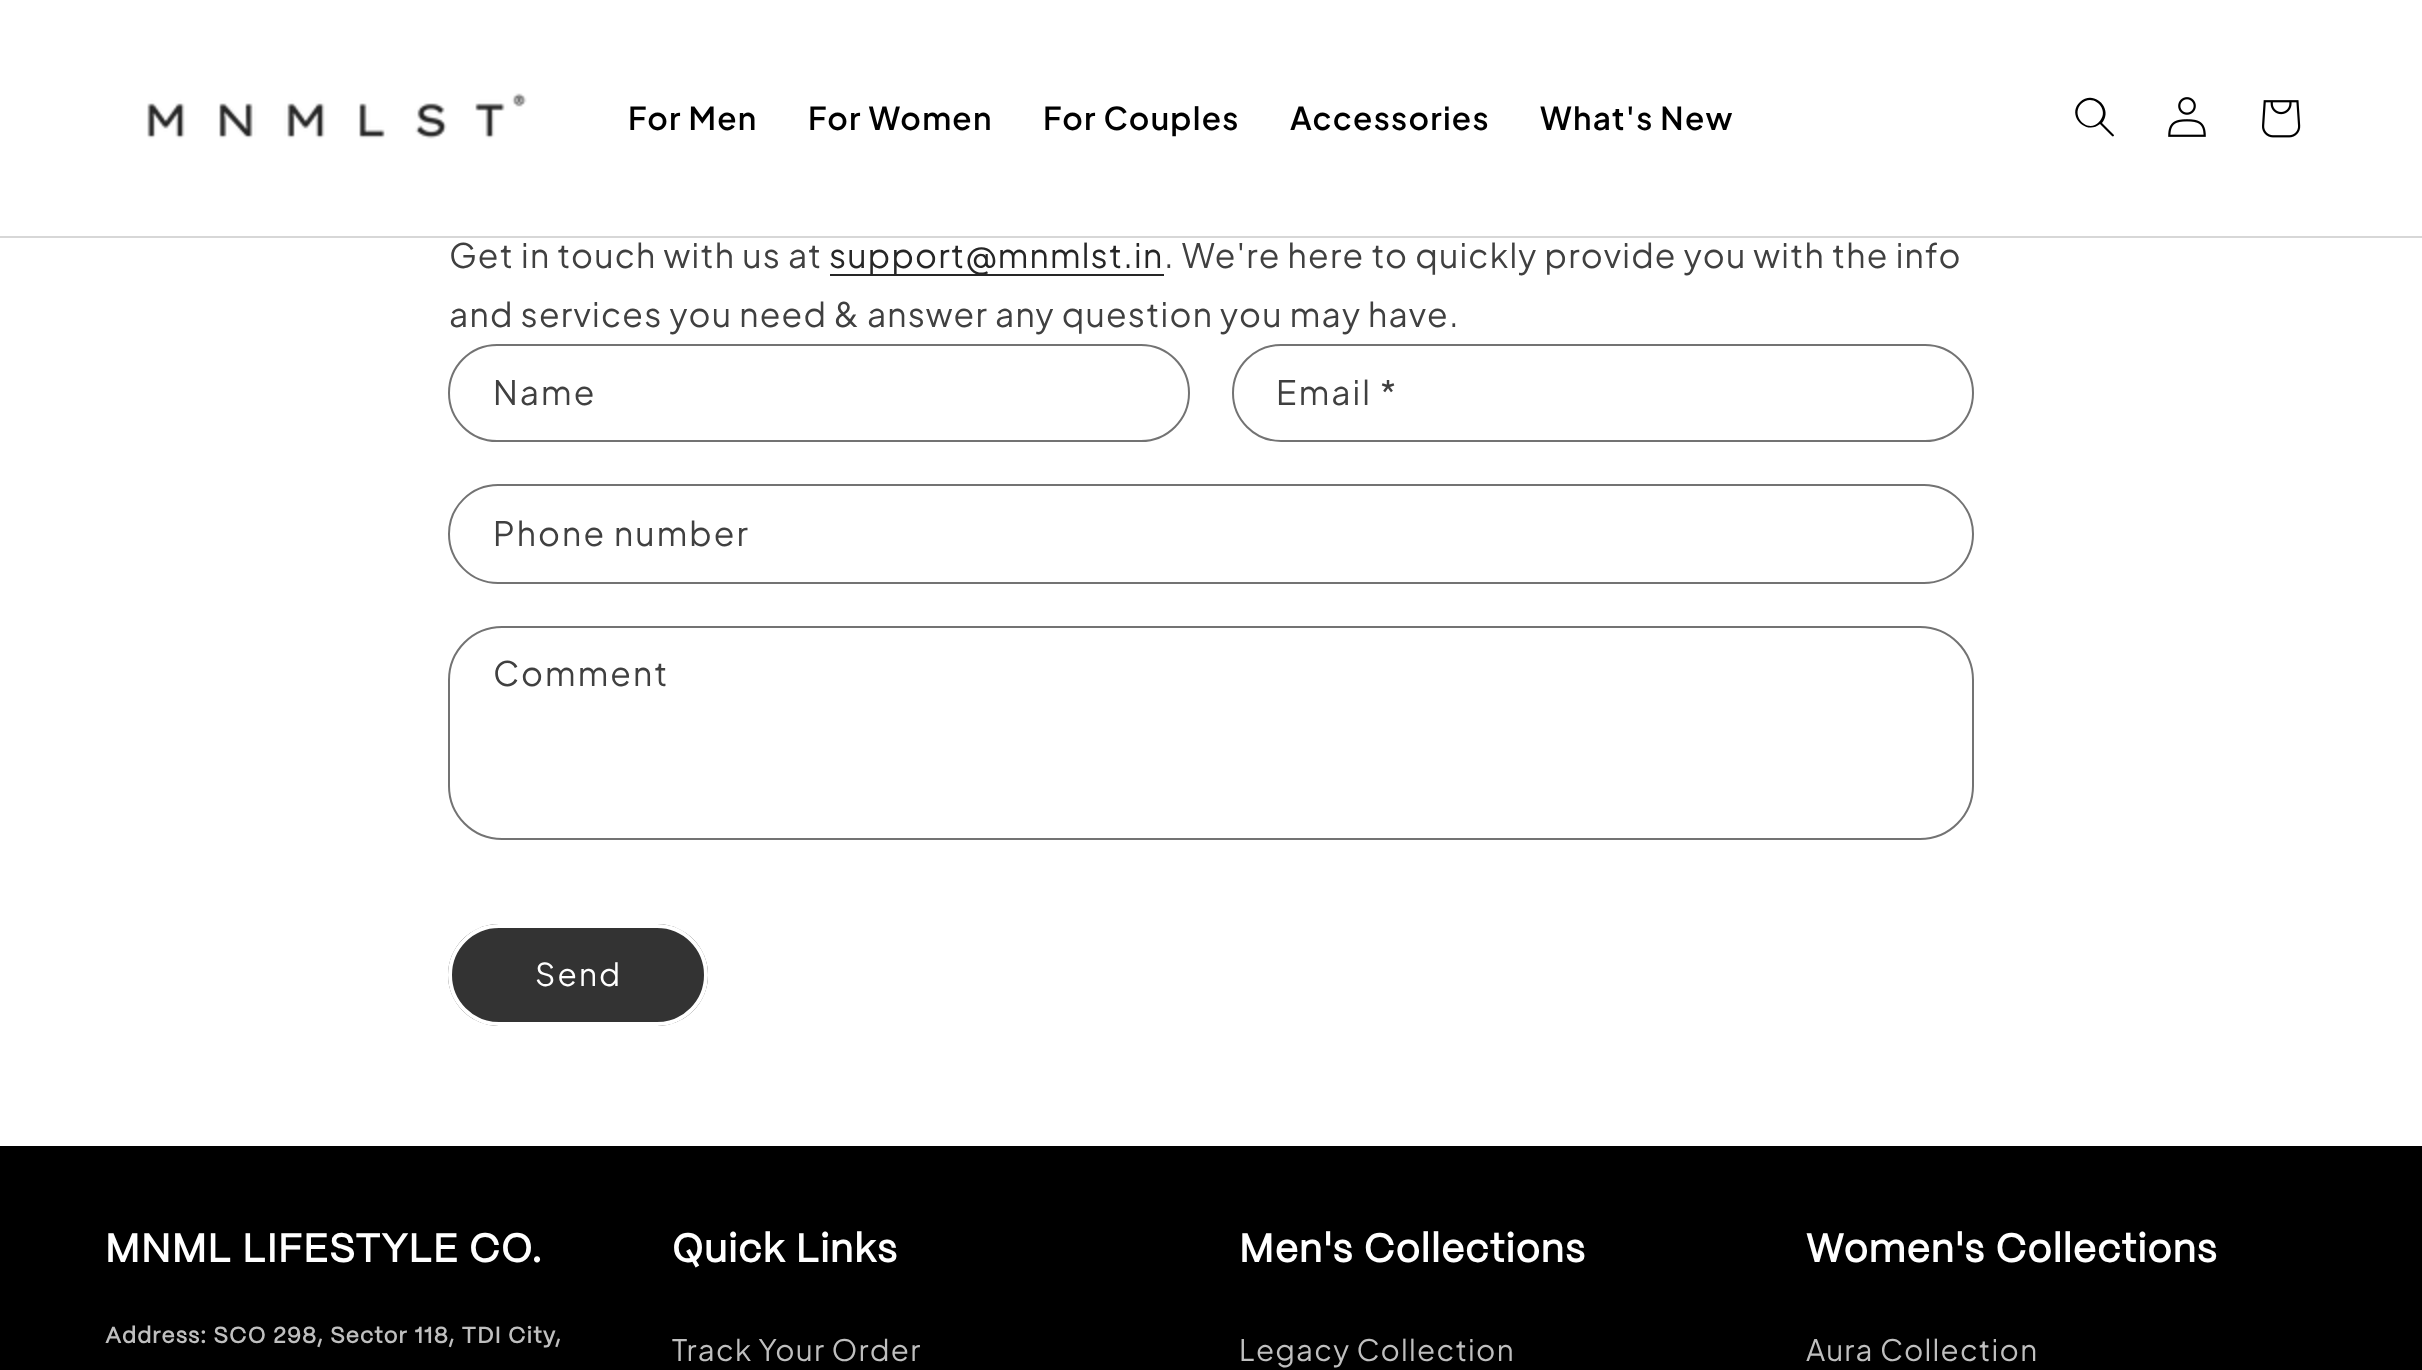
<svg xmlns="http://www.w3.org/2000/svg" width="2422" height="1370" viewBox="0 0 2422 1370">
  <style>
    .t1 { font: 600 31.5px Plus Jakarta Sans; letter-spacing: 1.25px; fill: #000; }
    .t2 { font: 33.6px Plus Jakarta Sans; letter-spacing: 1.25px; fill: #404040; }
    .t3 { font: 33.6px Plus Jakarta Sans; letter-spacing: 1.25px; fill: #262626; }
    .t4 { font: 33.6px Plus Jakarta Sans; letter-spacing: 2.1px; fill: #404040; }
    .t5 { font: 31.5px Plus Jakarta Sans; letter-spacing: 2.1px; fill: #fff; }
    .t6 { font: bold 39.6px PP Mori; letter-spacing: 1.3px; fill: #fff; }
    .t7 { font: bold 22.5px PP Mori; letter-spacing: 1.25px; fill: #bfbfbf; }
    .t8 { font: 29.5px Plus Jakarta Sans; letter-spacing: 1.25px; fill: #bfbfbf; }
  </style>
  <rect width="100%" height="100%" fill="#fff"/>
  <rect x="0" y="236" width="2422" height="2" fill="#d7d7d7"/>
  <image x="147" y="93" width="380" height="46" href="images/1.png"/>
  <text x="628" y="130" class="t1">For Men</text>
  <text x="808" y="130" class="t1">For Women</text>
  <text x="1043" y="130" class="t1">For Couples</text>
  <text x="1290" y="130" class="t1">Accessories</text>
  <text x="1540" y="130" class="t1">What's New</text>
  <path d="M2099 122C2088 134 2070 116 2081 104C2093 92 2111 110 2099 122M2100 124C2086 136 2066 115 2080 102C2094 89 2114 109 2102 123L2114 135C2114 136 2113 137 2112 136Z" fill="#000" fill-rule="evenodd"/>
  <image x="2168" y="97" width="38" height="40" href="images/2.png"/>
  <image x="2262" y="100" width="39" height="38" href="images/3.png"/>
  <text x="449" y="268" class="t2">Get in touch with us at</text>
  <rect x="830" y="274" width="334" height="2" fill="#262626"/>
  <text x="829" y="268" class="t3">support@mnmlst.in</text>
  <text x="1164" y="268" class="t2">. We're here to quickly provide you with the info</text>
  <text x="449" y="327" class="t2">and services you need &amp; answer any question you may have.</text>
  <rect x="449" y="345" width="740" height="96" rx="48" fill="none" stroke="#737373" stroke-width="2"/>
  <text x="493" y="405" class="t4">Name</text>
  <rect x="1233" y="345" width="740" height="96" rx="48" fill="none" stroke="#737373" stroke-width="2"/>
  <text x="1276" y="405" class="t4">Email *</text>
  <rect x="449" y="485" width="1524" height="98" rx="49" fill="none" stroke="#737373" stroke-width="2"/>
  <text x="493" y="546" class="t4">Phone number</text>
  <rect x="449" y="627" width="1524" height="212" rx="53" fill="none" stroke="#737373" stroke-width="2"/>
  <text x="493" y="686" class="t4">Comment</text>
  <rect x="448" y="924" width="260" height="102" rx="51" fill="#333"/>
  <rect x="450" y="926" width="256" height="98" rx="49" fill="none" stroke="#fff" stroke-width="4"/>
  <text x="535" y="986" class="t5">Send</text>
  <rect x="0" y="1146" width="2422" height="224" fill="#000"/>
  <text x="105" y="1262" class="t6">MNML LIFESTYLE CO.</text>
  <text x="105" y="1343" class="t7">Address: SCO 298, Sector 118, TDI City,</text>
  <text x="672" y="1262" class="t6">Quick Links</text>
  <text x="672" y="1361" class="t8">Track Your Order</text>
  <text x="1239" y="1262" class="t6">Men's Collections</text>
  <text x="1239" y="1361" class="t8">Legacy Collection</text>
  <text x="1806" y="1262" class="t6">Women's Collections</text>
  <text x="1806" y="1361" class="t8">Aura Collection</text>
</svg>
